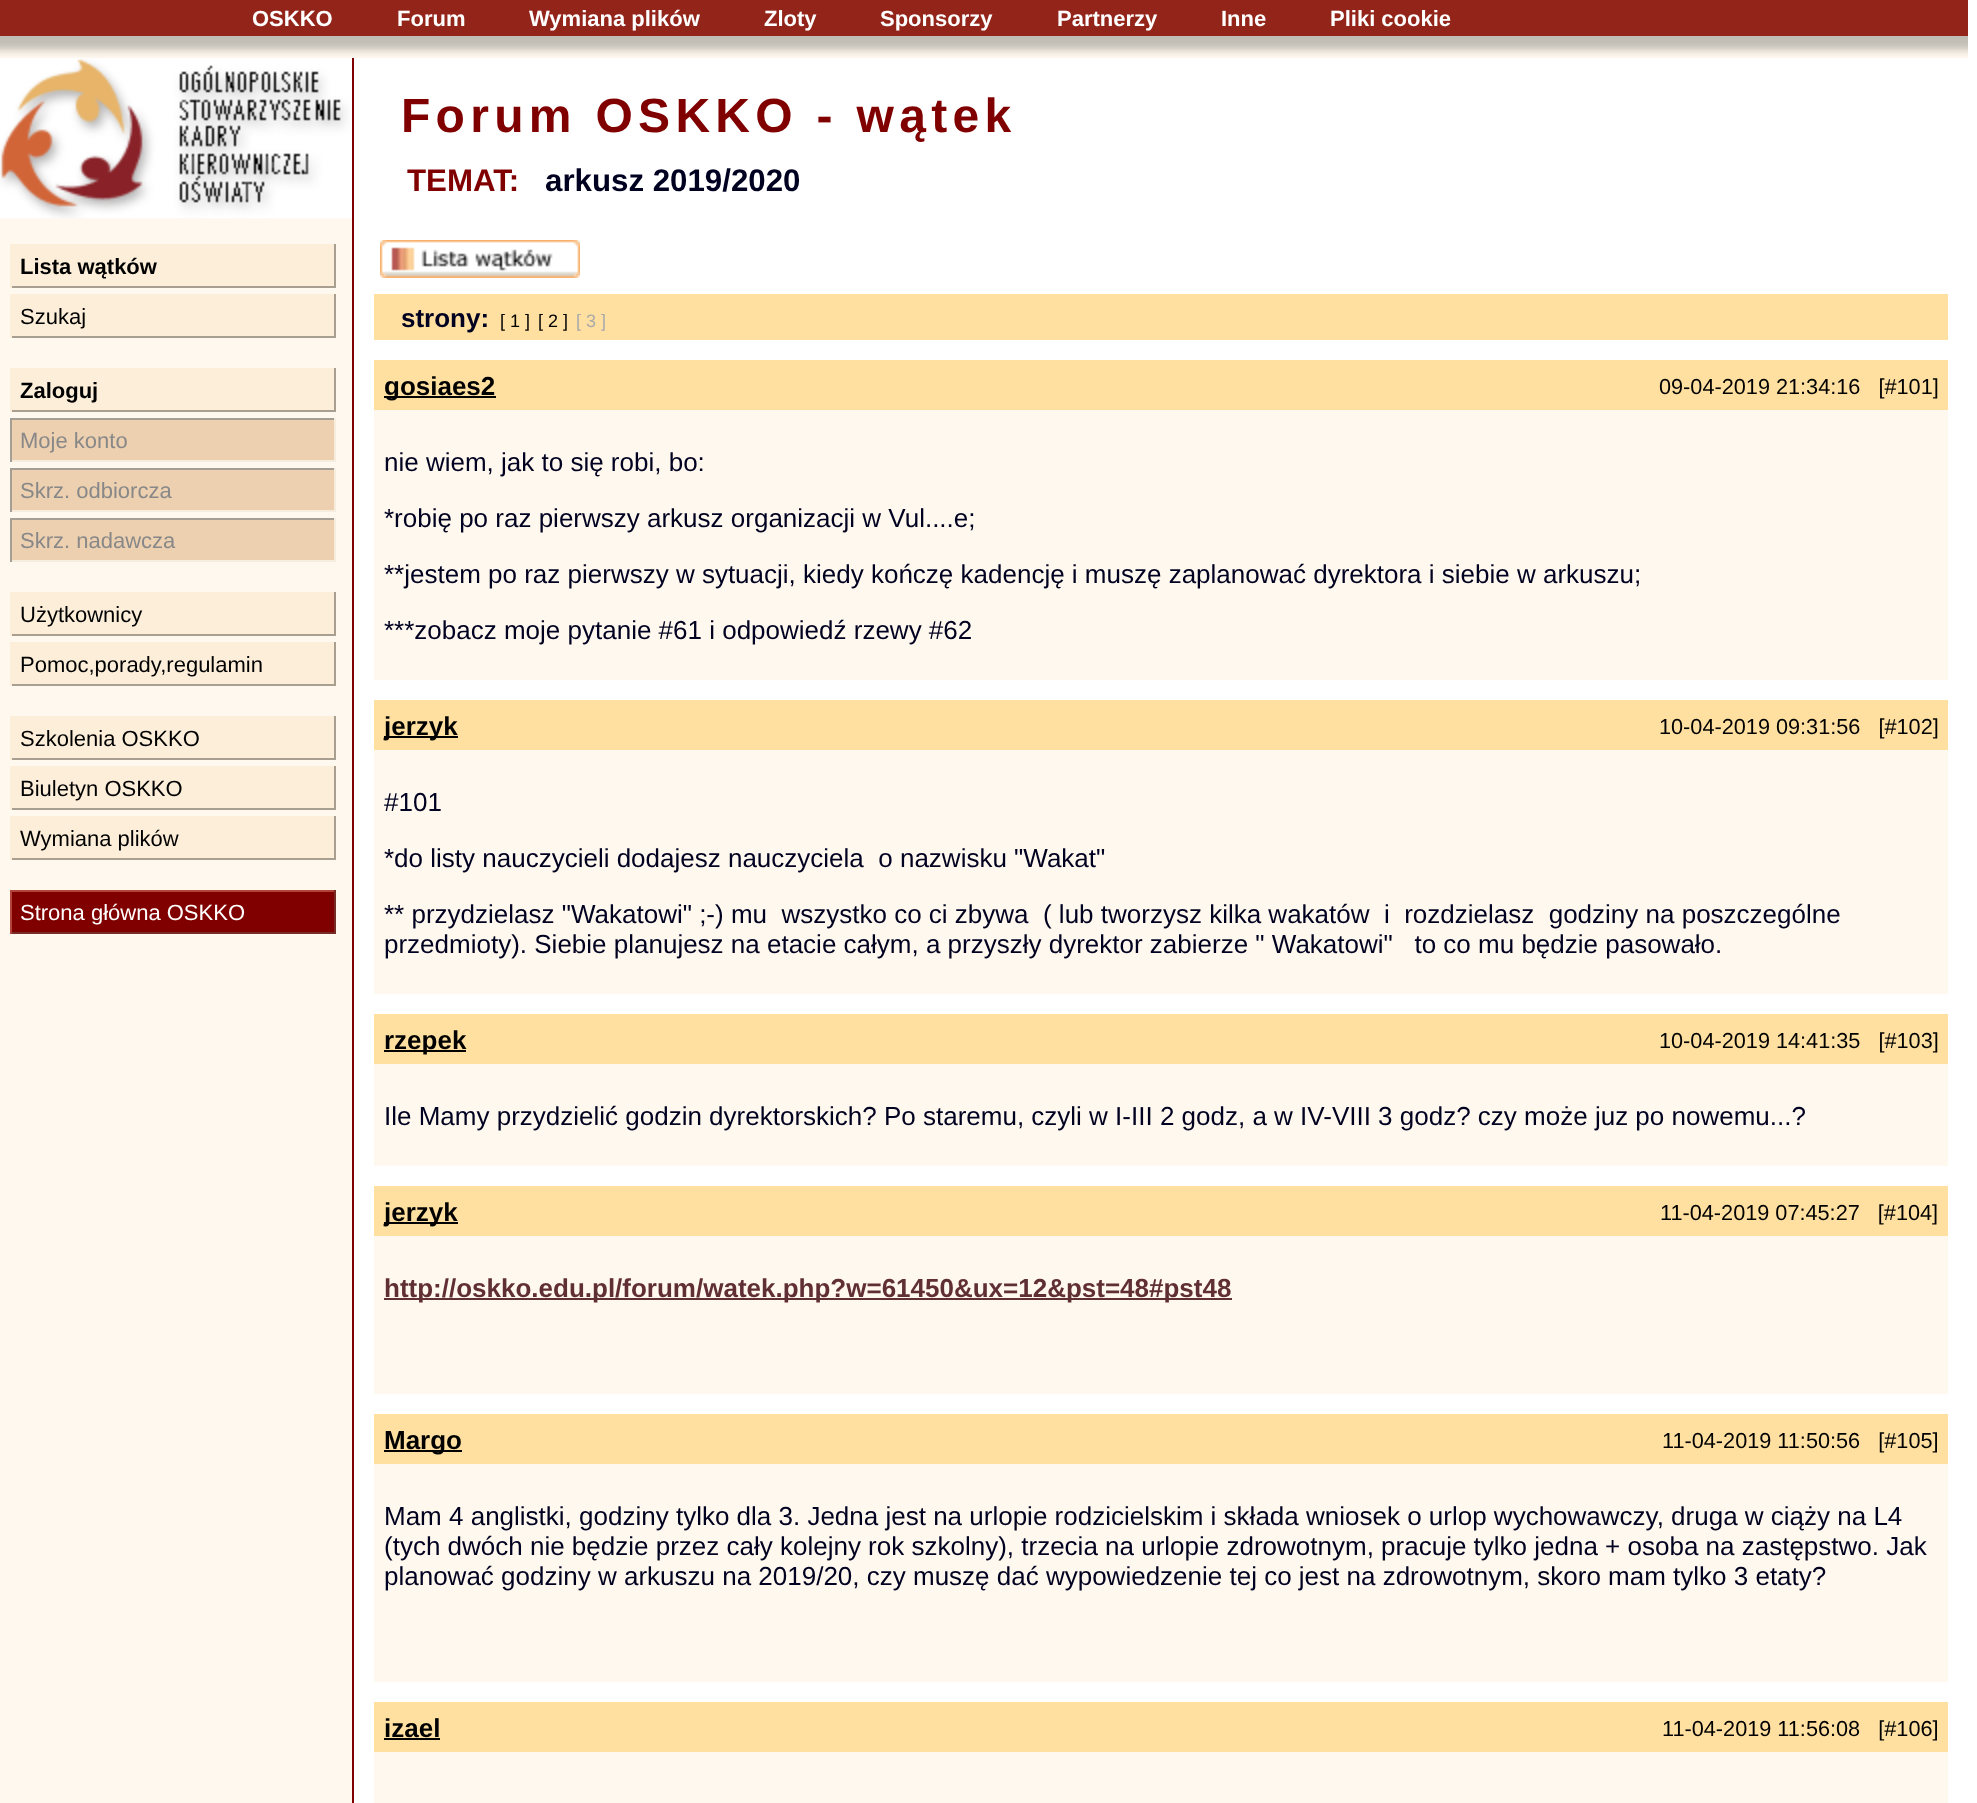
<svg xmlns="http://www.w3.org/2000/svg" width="1977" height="1803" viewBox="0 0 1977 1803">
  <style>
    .t1 { font: bold 22px Liberation Sans; fill: #fff; }
    .t2 { font: bold 22px Liberation Sans; fill: #000; }
    .t3 { font: 22px Liberation Sans; fill: #000; }
    .t4 { font: 22px Liberation Sans; fill: #888; }
    .t5 { font: 22px Liberation Sans; fill: #fff; }
    .t6 { font: bold 48px Liberation Sans; letter-spacing: 5.3px; fill: #800000; }
    .t7 { font: bold 31.25px Liberation Sans; fill: #800000; }
    .t8 { font: bold 31.25px Liberation Sans; fill: #000020; }
    .t9 { font: bold 26px Liberation Sans; fill: #000020; }
    .t10 { font: 18px Liberation Sans; fill: #000; }
    .t11 { font: 18px Liberation Sans; fill: #aaa; }
    .t12 { font: bold 26px Liberation Sans; fill: #000; }
    .t13 { font: 21.7px Liberation Sans; fill: #000; }
    .t14 { font: 26px Liberation Sans; fill: #000020; }
    .t15 { font: bold 26px Liberation Sans; fill: #602f36; }
  </style>
  <rect width="100%" height="100%" fill="#fff"/>
  <rect x="0" y="0" width="1968" height="36" fill="#922419"/>
  <text x="252" y="26" class="t1">OSKKO</text>
  <text x="397" y="26" class="t1">Forum</text>
  <text x="529" y="26" class="t1">Wymiana plików</text>
  <text x="764" y="26" class="t1">Zloty</text>
  <text x="880" y="26" class="t1">Sponsorzy</text>
  <text x="1057" y="26" class="t1">Partnerzy</text>
  <text x="1221" y="26" class="t1">Inne</text>
  <text x="1330" y="26" class="t1">Pliki cookie</text>
  <image x="0" y="36" width="1968" height="22" href="images/1.png"/>
  <rect x="0" y="218" width="352" height="1585" fill="#fff8ee"/>
  <rect x="352" y="58" width="2" height="1745" fill="#800000"/>
  <image x="0" y="58" width="352" height="160" href="images/2.png"/>
  <rect x="12" y="244" width="322" height="42" fill="#fceed9"/>
  <rect x="334" y="244" width="2" height="44" fill="#a89f91"/>
  <rect x="10" y="286" width="326" height="2" fill="#a89f91"/>
  <rect x="10" y="244" width="2" height="44" fill="#fceed9"/>
  <text x="20" y="274" class="t2">Lista wątków</text>
  <rect x="12" y="294" width="322" height="42" fill="#fceed9"/>
  <rect x="334" y="294" width="2" height="44" fill="#a89f91"/>
  <rect x="10" y="336" width="326" height="2" fill="#a89f91"/>
  <rect x="10" y="294" width="2" height="44" fill="#fceed9"/>
  <text x="20" y="324" class="t3">Szukaj</text>
  <rect x="12" y="368" width="322" height="42" fill="#fceed9"/>
  <rect x="334" y="368" width="2" height="44" fill="#a89f91"/>
  <rect x="10" y="410" width="326" height="2" fill="#a89f91"/>
  <rect x="10" y="368" width="2" height="44" fill="#fceed9"/>
  <text x="20" y="398" class="t2">Zaloguj</text>
  <rect x="12" y="420" width="322" height="40" fill="#edd0b0"/>
  <rect x="10" y="418" width="326" height="2" fill="#a49e95"/>
  <rect x="334" y="418" width="2" height="44" fill="#f6eddf"/>
  <rect x="10" y="460" width="326" height="2" fill="#f6eddf"/>
  <rect x="10" y="418" width="2" height="44" fill="#a49e95"/>
  <text x="20" y="448" class="t4">Moje konto</text>
  <rect x="12" y="470" width="322" height="40" fill="#edd0b0"/>
  <rect x="10" y="468" width="326" height="2" fill="#a49e95"/>
  <rect x="334" y="468" width="2" height="44" fill="#f6eddf"/>
  <rect x="10" y="510" width="326" height="2" fill="#f6eddf"/>
  <rect x="10" y="468" width="2" height="44" fill="#a49e95"/>
  <text x="20" y="498" class="t4">Skrz. odbiorcza</text>
  <rect x="12" y="520" width="322" height="40" fill="#edd0b0"/>
  <rect x="10" y="518" width="326" height="2" fill="#a49e95"/>
  <rect x="334" y="518" width="2" height="44" fill="#f6eddf"/>
  <rect x="10" y="560" width="326" height="2" fill="#f6eddf"/>
  <rect x="10" y="518" width="2" height="44" fill="#a49e95"/>
  <text x="20" y="548" class="t4">Skrz. nadawcza</text>
  <rect x="12" y="592" width="322" height="42" fill="#fceed9"/>
  <rect x="334" y="592" width="2" height="44" fill="#a89f91"/>
  <rect x="10" y="634" width="326" height="2" fill="#a89f91"/>
  <rect x="10" y="592" width="2" height="44" fill="#fceed9"/>
  <text x="20" y="622" class="t3">Użytkownicy</text>
  <rect x="12" y="642" width="322" height="42" fill="#fceed9"/>
  <rect x="334" y="642" width="2" height="44" fill="#a89f91"/>
  <rect x="10" y="684" width="326" height="2" fill="#a89f91"/>
  <rect x="10" y="642" width="2" height="44" fill="#fceed9"/>
  <text x="20" y="672" class="t3">Pomoc,porady,regulamin</text>
  <rect x="12" y="716" width="322" height="42" fill="#fceed9"/>
  <rect x="334" y="716" width="2" height="44" fill="#a89f91"/>
  <rect x="10" y="758" width="326" height="2" fill="#a89f91"/>
  <rect x="10" y="716" width="2" height="44" fill="#fceed9"/>
  <text x="20" y="746" class="t3">Szkolenia OSKKO</text>
  <rect x="12" y="766" width="322" height="42" fill="#fceed9"/>
  <rect x="334" y="766" width="2" height="44" fill="#a89f91"/>
  <rect x="10" y="808" width="326" height="2" fill="#a89f91"/>
  <rect x="10" y="766" width="2" height="44" fill="#fceed9"/>
  <text x="20" y="796" class="t3">Biuletyn OSKKO</text>
  <rect x="12" y="816" width="322" height="42" fill="#fceed9"/>
  <rect x="334" y="816" width="2" height="44" fill="#a89f91"/>
  <rect x="10" y="858" width="326" height="2" fill="#a89f91"/>
  <rect x="10" y="816" width="2" height="44" fill="#fceed9"/>
  <text x="20" y="846" class="t3">Wymiana plików</text>
  <rect x="12" y="892" width="322" height="40" fill="#800000"/>
  <rect x="10" y="890" width="326" height="2" fill="#b24439"/>
  <rect x="334" y="890" width="2" height="44" fill="#772d26"/>
  <rect x="10" y="932" width="326" height="2" fill="#772d26"/>
  <rect x="10" y="890" width="2" height="44" fill="#b24439"/>
  <text x="20" y="920" class="t5">Strona główna OSKKO</text>
  <text x="401" y="132" class="t6">Forum OSKKO - wątek</text>
  <text x="407" y="191" class="t7">TEMAT:</text>
  <text x="545" y="191" class="t8">arkusz 2019/2020</text>
  <image x="380" y="240" width="200" height="38" href="images/3.png"/>
  <rect x="374" y="294" width="1574" height="46" fill="#ffe0a0"/>
  <text x="401" y="327" class="t9">strony:</text>
  <text x="500" y="327" class="t10">[ 1 ]</text>
  <text x="538" y="327" class="t10">[ 2 ]</text>
  <text x="576" y="327" class="t11">[ 3 ]</text>
  <rect x="374" y="360" width="1574" height="50" fill="#ffe0a0"/>
  <rect x="384" y="396" width="112" height="2" fill="#000"/>
  <text x="384" y="395" class="t12">gosiaes2</text>
  <text x="1659" y="394" class="t13" xml:space="preserve">09-04-2019 21:34:16   [#101]</text>
  <rect x="374" y="410" width="1574" height="270" fill="#fff8ee"/>
  <text x="384" y="471" class="t14">nie wiem, jak to się robi, bo:</text>
  <text x="384" y="527" class="t14">*robię po raz pierwszy arkusz organizacji w Vul....e;</text>
  <text x="384" y="583" class="t14">**jestem po raz pierwszy w sytuacji, kiedy kończę kadencję i muszę zaplanować dyrektora i siebie w arkuszu;</text>
  <text x="384" y="639" class="t14">***zobacz moje pytanie #61 i odpowiedź rzewy #62</text>
  <rect x="374" y="700" width="1574" height="50" fill="#ffe0a0"/>
  <rect x="384" y="736" width="74" height="2" fill="#000"/>
  <text x="384" y="735" class="t12">jerzyk</text>
  <text x="1659" y="734" class="t13" xml:space="preserve">10-04-2019 09:31:56   [#102]</text>
  <rect x="374" y="750" width="1574" height="244" fill="#fff8ee"/>
  <text x="384" y="811" class="t14">#101</text>
  <text x="384" y="867" class="t14" xml:space="preserve">*do listy nauczycieli dodajesz nauczyciela  o nazwisku "Wakat"</text>
  <text x="384" y="923" class="t14" xml:space="preserve">** przydzielasz "Wakatowi" ;-) mu  wszystko co ci zbywa  ( lub tworzysz kilka wakatów  i  rozdzielasz  godziny na poszczególne</text>
  <text x="384" y="953" class="t14" xml:space="preserve">przedmioty). Siebie planujesz na etacie całym, a przyszły dyrektor zabierze " Wakatowi"   to co mu będzie pasowało.</text>
  <rect x="374" y="1014" width="1574" height="50" fill="#ffe0a0"/>
  <rect x="384" y="1050" width="82" height="2" fill="#000"/>
  <text x="384" y="1049" class="t12">rzepek</text>
  <text x="1659" y="1048" class="t13" xml:space="preserve">10-04-2019 14:41:35   [#103]</text>
  <rect x="374" y="1064" width="1574" height="102" fill="#fff8ee"/>
  <text x="384" y="1125" class="t14">Ile Mamy przydzielić godzin dyrektorskich? Po staremu, czyli w I-III 2 godz, a w IV-VIII 3 godz? czy może juz po nowemu...?</text>
  <rect x="374" y="1186" width="1574" height="50" fill="#ffe0a0"/>
  <rect x="384" y="1222" width="74" height="2" fill="#000"/>
  <text x="384" y="1221" class="t12">jerzyk</text>
  <text x="1660" y="1220" class="t13" xml:space="preserve">11-04-2019 07:45:27   [#104]</text>
  <rect x="374" y="1236" width="1574" height="158" fill="#fff8ee"/>
  <rect x="384" y="1298" width="848" height="2" fill="#602f36"/>
  <text x="384" y="1297" class="t15">http://oskko.edu.pl/forum/watek.php?w=61450&amp;ux=12&amp;pst=48#pst48</text>
  <rect x="374" y="1414" width="1574" height="50" fill="#ffe0a0"/>
  <rect x="384" y="1450" width="78" height="2" fill="#000"/>
  <text x="384" y="1449" class="t12">Margo</text>
  <text x="1662" y="1448" class="t13" xml:space="preserve">11-04-2019 11:50:56   [#105]</text>
  <rect x="374" y="1464" width="1574" height="218" fill="#fff8ee"/>
  <text x="384" y="1525" class="t14">Mam 4 anglistki, godziny tylko dla 3. Jedna jest na urlopie rodzicielskim i składa wniosek o urlop wychowawczy, druga w ciąży na L4</text>
  <text x="384" y="1555" class="t14">(tych dwóch nie będzie przez cały kolejny rok szkolny), trzecia na urlopie zdrowotnym, pracuje tylko jedna + osoba na zastępstwo. Jak</text>
  <text x="384" y="1585" class="t14">planować godziny w arkuszu na 2019/20, czy muszę dać wypowiedzenie tej co jest na zdrowotnym, skoro mam tylko 3 etaty?</text>
  <rect x="374" y="1702" width="1574" height="50" fill="#ffe0a0"/>
  <text x="384" y="1737" class="t12">izael</text>
  <rect x="384" y="1738" width="56" height="2" fill="#000"/>
  <text x="1662" y="1736" class="t13" xml:space="preserve">11-04-2019 11:56:08   [#106]</text>
  <rect x="374" y="1752" width="1574" height="51" fill="#fff8ee"/>
</svg>
